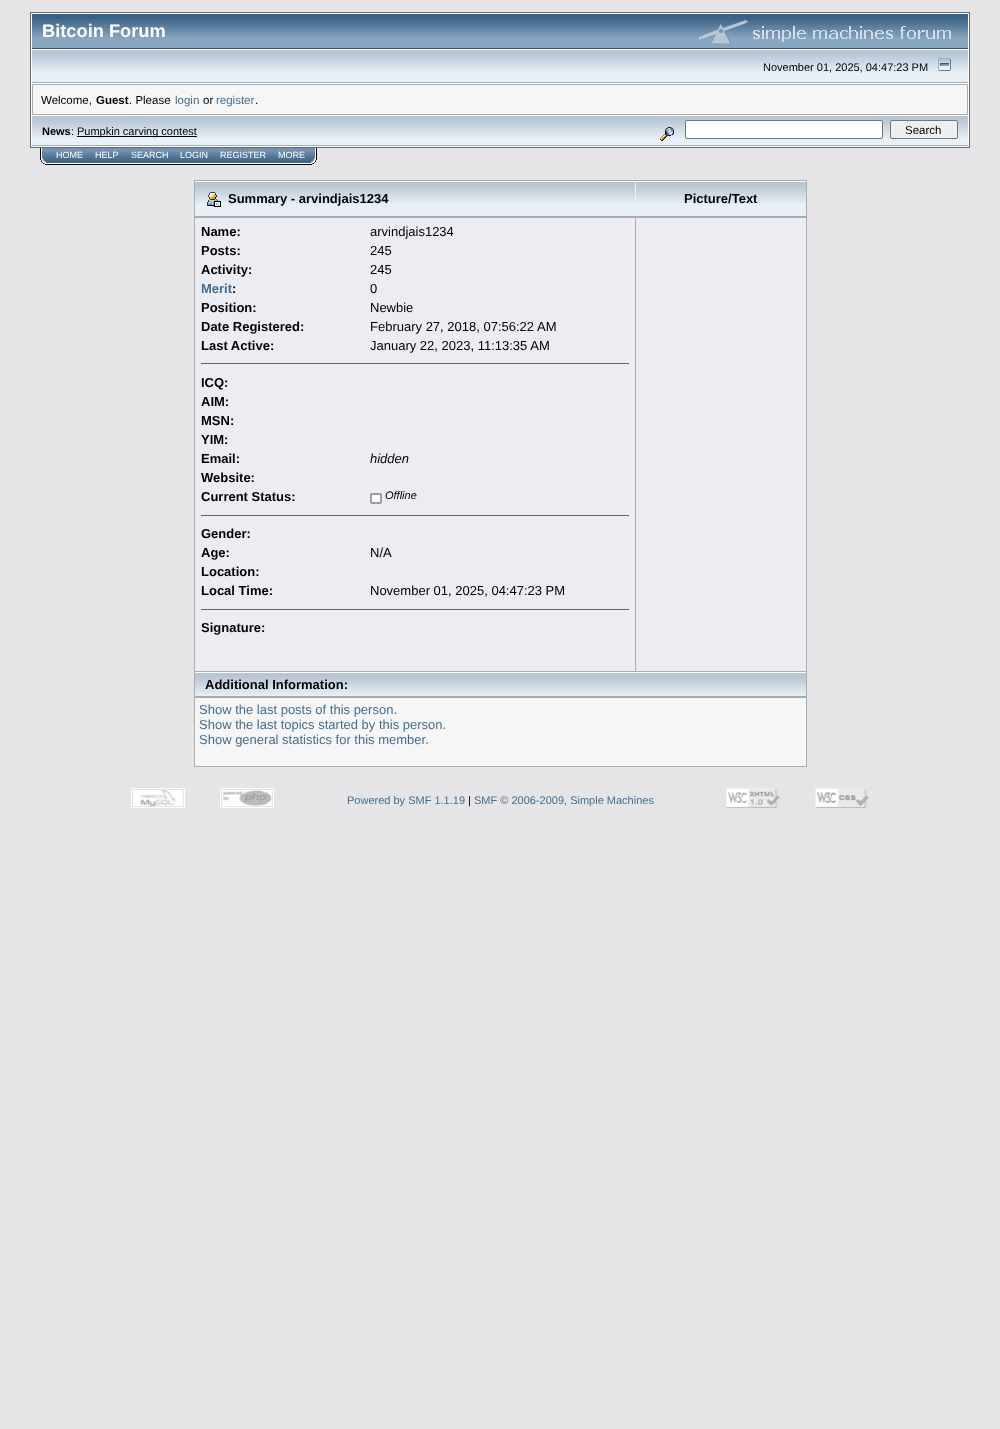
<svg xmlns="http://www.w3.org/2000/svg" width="1000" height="1429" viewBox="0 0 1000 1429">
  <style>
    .t1 { font: bold 18.25px Liberation Sans; fill: #fff; }
    .t2 { font: 11px Liberation Sans; fill: #000; }
    .t3 { font: 11.5px Liberation Sans; fill: #000; }
    .t4 { font: bold 11.5px Liberation Sans; fill: #000; }
    .t5 { font: 11.5px Liberation Sans; fill: #476c8e; }
    .t6 { font: bold 11px Liberation Sans; fill: #000; }
    .t7 { font: 9px Liberation Sans; fill: #fff; }
    .t8 { font: bold 13px Liberation Sans; fill: #000; }
    .t9 { font: 13px Liberation Sans; fill: #000; }
    .t10 { font: bold 13px Liberation Sans; fill: #476c8e; }
    .t11 { font: italic 13px Liberation Sans; fill: #000; }
    .t12 { font: italic 11px Liberation Sans; fill: #000; }
    .t13 { font: 13px Liberation Sans; fill: #476c8e; }
    .t14 { font: 11px Liberation Sans; fill: #476c8e; }
  </style>
  <rect width="100%" height="100%" fill="#e5e5e8"/>
  <rect x="30.5" y="12.5" width="939" height="135" fill="#fff" stroke="#696969"/>
  <rect x="32" y="38" width="936" height="10" fill="#88a6c0"/>
  <image x="32" y="14" width="315" height="24" href="images/1.png"/>
  <rect x="32" y="48" width="936" height="1" fill="#375576"/>
  <text x="42" y="37" class="t1">Bitcoin Forum</text>
  <image x="347" y="14" width="621" height="24" href="images/2.png"/>
  <image x="698" y="20" width="253" height="24" href="images/3.png"/>
  <rect x="32" y="72" width="936" height="10" fill="#e9f0f6"/>
  <image x="32" y="50" width="936" height="22" href="images/4.png"/>
  <rect x="32" y="82" width="936" height="1" fill="#9baebf"/>
  <text x="763" y="71" class="t2">November 01, 2025, 04:47:23 PM</text>
  <image x="938" y="58" width="13" height="13" href="images/5.png"/>
  <rect x="32" y="84" width="936" height="31" fill="#adadad"/>
  <rect x="33" y="85" width="934" height="29" fill="#f6f6f6"/>
  <text x="41" y="104" class="t3">Welcome,</text>
  <text x="96" y="104" class="t4">Guest</text>
  <text x="129" y="104" class="t3">. Please</text>
  <text x="175" y="104" class="t5">login</text>
  <text x="203" y="104" class="t3">or</text>
  <text x="216" y="104" class="t5">register</text>
  <text x="255" y="104" class="t3">.</text>
  <rect x="32" y="138" width="936" height="7" fill="#e9f0f6"/>
  <image x="32" y="116" width="611" height="22" href="images/6.png"/>
  <rect x="32" y="145" width="936" height="1" fill="#9baebf"/>
  <text x="42" y="135" class="t6">News</text>
  <text x="71" y="135" class="t2">:</text>
  <rect x="77" y="136" width="120" height="1" fill="#000"/>
  <text x="77" y="135" class="t2">Pumpkin carving contest</text>
  <image x="643" y="116" width="325" height="22" href="images/7.png"/>
  <image x="660" y="127" width="14" height="14" href="images/8.png"/>
  <rect x="685.5" y="120.5" width="197" height="18" rx="1.5" fill="#fff" stroke="#767676"/>
  <rect x="890.5" y="120.5" width="67" height="18" rx="1.5" fill="#efefef" stroke="#767676"/>
  <text x="905" y="134" class="t3">Search</text>
  <image x="40" y="148" width="10" height="17" href="images/9.png"/>
  <image x="50" y="148" width="39" height="17" href="images/10.png"/>
  <text x="56" y="158" class="t7">HOME</text>
  <image x="89" y="148" width="36" height="17" href="images/11.png"/>
  <text x="95" y="158" class="t7">HELP</text>
  <image x="125" y="148" width="49" height="17" href="images/12.png"/>
  <text x="131" y="158" class="t7">SEARCH</text>
  <image x="174" y="148" width="40" height="17" href="images/13.png"/>
  <text x="180" y="158" class="t7">LOGIN</text>
  <image x="214" y="148" width="58" height="17" href="images/14.png"/>
  <text x="220" y="158" class="t7">REGISTER</text>
  <image x="272" y="148" width="39" height="17" href="images/10.png"/>
  <text x="278" y="158" class="t7">MORE</text>
  <image x="311" y="148" width="6" height="17" href="images/15.png"/>
  <rect x="194" y="180" width="613" height="587" fill="#adadad"/>
  <rect x="635" y="182" width="1" height="34" fill="#e9f0f6"/>
  <rect x="195" y="181" width="611" height="1" fill="#fff"/>
  <rect x="195" y="216" width="611" height="1" fill="#9baebf"/>
  <rect x="195" y="204" width="440" height="12" fill="#e9f0f6"/>
  <image x="195" y="182" width="440" height="22" href="images/16.png"/>
  <image x="207" y="192" width="14" height="15" href="images/17.png"/>
  <text x="228" y="203" class="t8">Summary - arvindjais1234</text>
  <rect x="636" y="204" width="170" height="12" fill="#e9f0f6"/>
  <image x="636" y="182" width="170" height="22" href="images/18.png"/>
  <text x="684" y="203" class="t8">Picture/Text</text>
  <rect x="195" y="218" width="440" height="453" fill="#ecedf3"/>
  <text x="201" y="236" class="t8">Name:</text>
  <text x="370" y="236" class="t9">arvindjais1234</text>
  <text x="201" y="255" class="t8">Posts:</text>
  <text x="370" y="255" class="t9">245</text>
  <text x="201" y="274" class="t8">Activity:</text>
  <text x="370" y="274" class="t9">245</text>
  <text x="201" y="293" class="t10">Merit</text>
  <text x="232" y="293" class="t8">:</text>
  <text x="370" y="293" class="t9">0</text>
  <text x="201" y="312" class="t8">Position:</text>
  <text x="370" y="312" class="t9">Newbie</text>
  <text x="201" y="331" class="t8">Date Registered:</text>
  <text x="370" y="331" class="t9">February 27, 2018, 07:56:22 AM</text>
  <text x="201" y="350" class="t8">Last Active:</text>
  <text x="370" y="350" class="t9">January 22, 2023, 11:13:35 AM</text>
  <rect x="201" y="363" width="428" height="1" fill="#666"/>
  <text x="201" y="387" class="t8">ICQ:</text>
  <text x="201" y="406" class="t8">AIM:</text>
  <text x="201" y="425" class="t8">MSN:</text>
  <text x="201" y="444" class="t8">YIM:</text>
  <text x="201" y="463" class="t8">Email:</text>
  <text x="370" y="463" class="t11">hidden</text>
  <text x="201" y="482" class="t8">Website:</text>
  <text x="201" y="501" class="t8">Current Status:</text>
  <image x="370" y="493" width="12" height="11" href="images/19.png"/>
  <text x="385" y="499" class="t12">Offline</text>
  <rect x="201" y="515" width="428" height="1" fill="#666"/>
  <text x="201" y="538" class="t8">Gender:</text>
  <text x="201" y="557" class="t8">Age:</text>
  <text x="370" y="557" class="t9">N/A</text>
  <text x="201" y="576" class="t8">Location:</text>
  <text x="201" y="595" class="t8">Local Time:</text>
  <text x="370" y="595" class="t9">November 01, 2025, 04:47:23 PM</text>
  <rect x="201" y="609" width="428" height="1" fill="#666"/>
  <text x="201" y="632" class="t8">Signature:</text>
  <rect x="636" y="218" width="170" height="453" fill="#ecedf3"/>
  <rect x="195" y="695" width="611" height="1" fill="#e9f0f6"/>
  <image x="195" y="673" width="611" height="22" href="images/6.png"/>
  <rect x="195" y="672" width="611" height="1" fill="#fff"/>
  <rect x="195" y="696" width="611" height="1" fill="#9baebf"/>
  <text x="205" y="689" class="t8">Additional Information:</text>
  <rect x="195" y="698" width="611" height="68" fill="#f6f6f6"/>
  <text x="199" y="714" class="t13">Show the last posts of this person.</text>
  <text x="199" y="729" class="t13">Show the last topics started by this person.</text>
  <text x="199" y="744" class="t13">Show general statistics for this member.</text>
  <image x="131" y="788" width="54" height="20" href="images/20.png"/>
  <image x="220" y="788" width="54" height="20" href="images/21.png"/>
  <text x="347" y="804" class="t14">Powered by SMF 1.1.19</text>
  <text x="468" y="804" class="t2">|</text>
  <text x="474" y="804" class="t14">SMF © 2006-2009, Simple Machines</text>
  <image x="726" y="788" width="54" height="20" href="images/22.png"/>
  <image x="815" y="788" width="54" height="20" href="images/23.png"/>
</svg>
